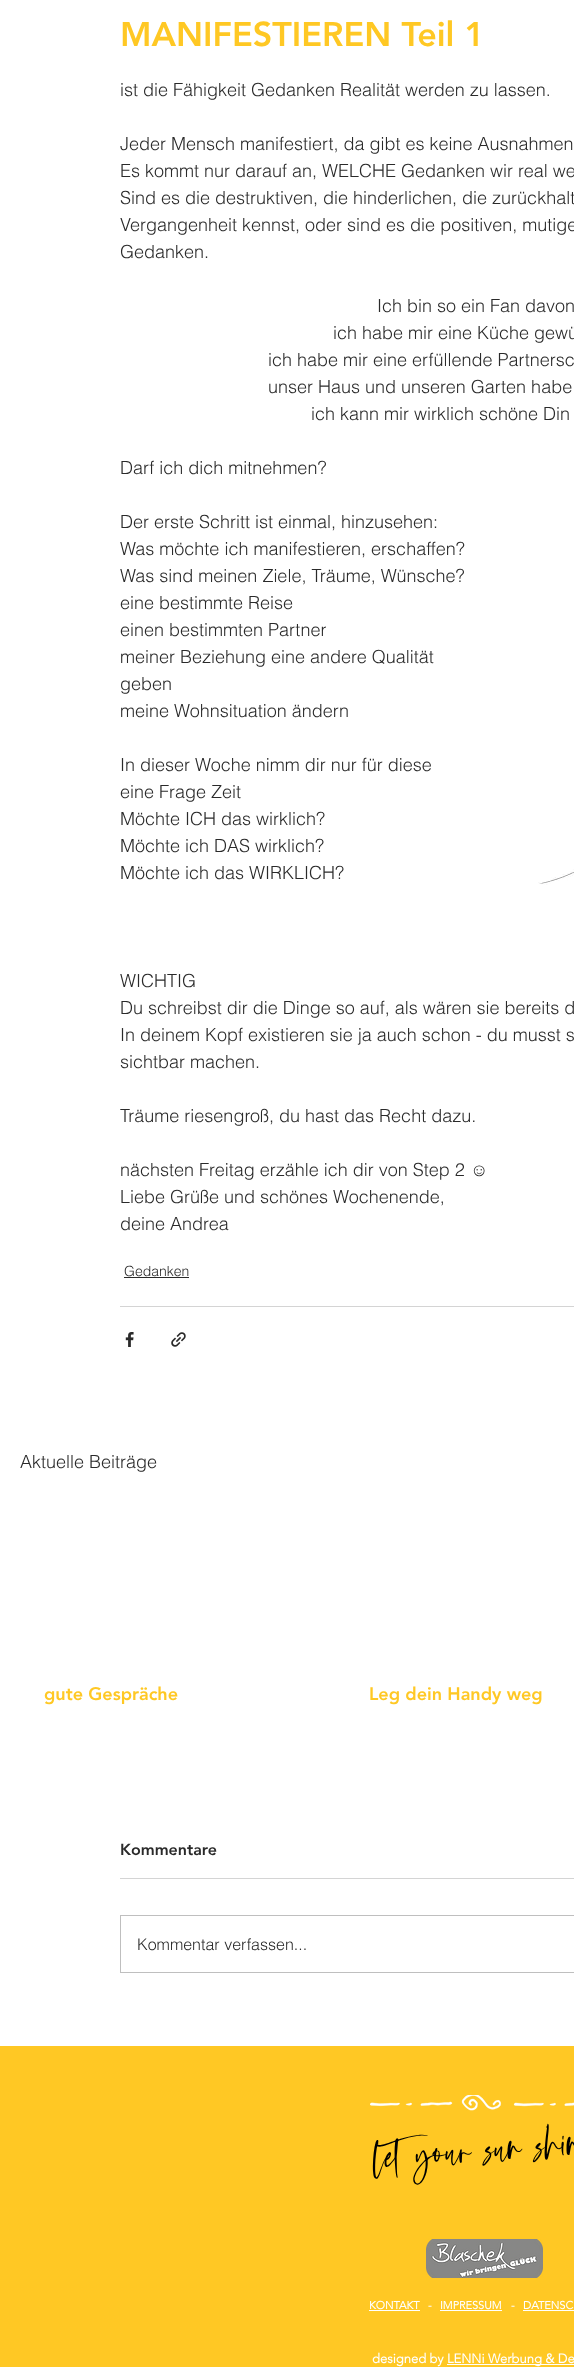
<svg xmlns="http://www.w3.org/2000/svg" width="574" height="2372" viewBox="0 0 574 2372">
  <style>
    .t1 { font: 900 34px 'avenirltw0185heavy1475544'; fill: #ffc824; }
    .t2 { font: 300 18px helvetica; fill: #2a2a2a; }
    .t3 { font: 18px Liberation Sans; fill: #2a2a2a; }
    .t4 { font: 300 14px helvetica; fill: #2a2a2a; }
    .t5 { font: 900 18px 'avenirltw0185heavy1475544'; fill: #ffc824; }
    .t6 { font: 900 16px 'avenirltw0185heavy1475544'; fill: #2a2a2a; }
    .t7 { font: 300 16px helvetica; fill: #2a2a2a; }
    .t8 { font: 47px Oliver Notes; fill: #000; }
    .t9 { font: bold 11px 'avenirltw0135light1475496'; fill: #fff; }
    .t10 { font: bold 13px 'avenirltw0135light1475496'; fill: #fff; }
  </style>
  <rect width="100%" height="100%" fill="#fff"/>
  <text x="120" y="46" class="t1">MANIFESTIEREN Teil 1</text>
  <text x="120" y="96" class="t2">ist die Fähigkeit Gedanken Realität werden zu lassen.</text>
  <text x="120" y="150" class="t2">Jeder Mensch manifestiert, da gibt es keine Ausnahmen</text>
  <text x="120" y="177" class="t2">Es kommt nur darauf an, WELCHE Gedanken wir real we</text>
  <text x="120" y="204" class="t2">Sind es die destruktiven, die hinderlichen, die zurückhalt</text>
  <text x="120" y="231" class="t2">Vergangenheit kennst, oder sind es die positiven, mutige</text>
  <text x="120" y="258" class="t2">Gedanken.</text>
  <text x="377" y="312" class="t2">Ich bin so ein Fan davon</text>
  <text x="333" y="339" class="t2">ich habe mir eine Küche gewü</text>
  <text x="268" y="366" class="t2">ich habe mir eine erfüllende Partnersc</text>
  <text x="268" y="393" class="t2">unser Haus und unseren Garten habe</text>
  <text x="311" y="420" class="t2">ich kann mir wirklich schöne Din</text>
  <text x="120" y="474" class="t2">Darf ich dich mitnehmen?</text>
  <text x="120" y="528" class="t2">Der erste Schritt ist einmal, hinzusehen:</text>
  <text x="120" y="555" class="t2">Was möchte ich manifestieren, erschaffen?</text>
  <text x="120" y="582" class="t2">Was sind meinen Ziele, Träume, Wünsche?</text>
  <text x="120" y="609" class="t2">eine bestimmte Reise</text>
  <text x="120" y="636" class="t2">einen bestimmten Partner</text>
  <text x="120" y="663" class="t2">meiner Beziehung eine andere Qualität</text>
  <text x="120" y="690" class="t2">geben</text>
  <text x="120" y="717" class="t2">meine Wohnsituation ändern</text>
  <text x="120" y="771" class="t2">In dieser Woche nimm dir nur für diese</text>
  <text x="120" y="798" class="t2">eine Frage Zeit</text>
  <text x="120" y="825" class="t2">Möchte ICH das wirklich?</text>
  <text x="120" y="852" class="t2">Möchte ich DAS wirklich?</text>
  <text x="120" y="879" class="t2">Möchte ich das WIRKLICH?</text>
  <image x="538" y="869" width="36" height="16" href="images/1.png"/>
  <text x="120" y="987" class="t2">WICHTIG</text>
  <text x="120" y="1014" class="t2">Du schreibst dir die Dinge so auf, als wären sie bereits d</text>
  <text x="120" y="1041" class="t2">In deinem Kopf existieren sie ja auch schon - du musst s</text>
  <text x="120" y="1068" class="t2">sichtbar machen.</text>
  <text x="120" y="1122" class="t2">Träume riesengroß, du hast das Recht dazu.</text>
  <text x="120" y="1176" class="t2">nächsten Freitag erzähle ich dir von Step 2</text>
  <text x="470" y="1176" class="t3">☺</text>
  <text x="120" y="1203" class="t2">Liebe Grüße und schönes Wochenende,</text>
  <text x="120" y="1230" class="t2">deine Andrea</text>
  <text x="124" y="1276" class="t4">Gedanken</text>
  <rect x="124" y="1277" width="65" height="1" fill="#2a2a2a"/>
  <rect x="120" y="1306" width="454" height="1" fill="#d4d4d4"/>
  <image x="125" y="1332" width="9" height="15" href="images/2.png"/>
  <image x="171" y="1332" width="15" height="15" href="images/3.png"/>
  <text x="20" y="1468" class="t2">Aktuelle Beiträge</text>
  <text x="44" y="1700" class="t5">gute Gespräche</text>
  <text x="369" y="1700" class="t5">Leg dein Handy weg</text>
  <text x="120" y="1855" class="t6">Kommentare</text>
  <rect x="120" y="1878" width="454" height="1" fill="#d4d4d4"/>
  <rect x="120.5" y="1915.5" width="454" height="57" fill="none" stroke="#bfbfbf"/>
  <text x="137" y="1950" class="t7">Kommentar verfassen...</text>
  <rect x="0" y="2046" width="574" height="321" fill="#ffc824"/>
  <image x="370" y="2095" width="204" height="16" href="images/4.png"/>
  <text x="374" y="2174" transform="rotate(-4 374 2174)" class="t8">let your sun shine!</text>
  <image x="426" y="2239" width="117" height="39" href="images/5.png"/>
  <text x="369" y="2309" class="t9">KONTAKT</text>
  <rect x="369" y="2310" width="51" height="1" fill="#fff"/>
  <text x="428" y="2309" class="t9">-</text>
  <text x="440" y="2309" class="t9">IMPRESSUM</text>
  <rect x="440" y="2310" width="62" height="1" fill="#fff"/>
  <text x="511" y="2309" class="t9">-</text>
  <text x="523" y="2309" class="t9">DATENSC</text>
  <rect x="523" y="2310" width="51" height="1" fill="#fff"/>
  <text x="372" y="2363" class="t10">designed by</text>
  <rect x="447" y="2364" width="127" height="1" fill="#fff"/>
  <text x="447" y="2363" class="t10">LENNi Werbung &amp; De</text>
</svg>
